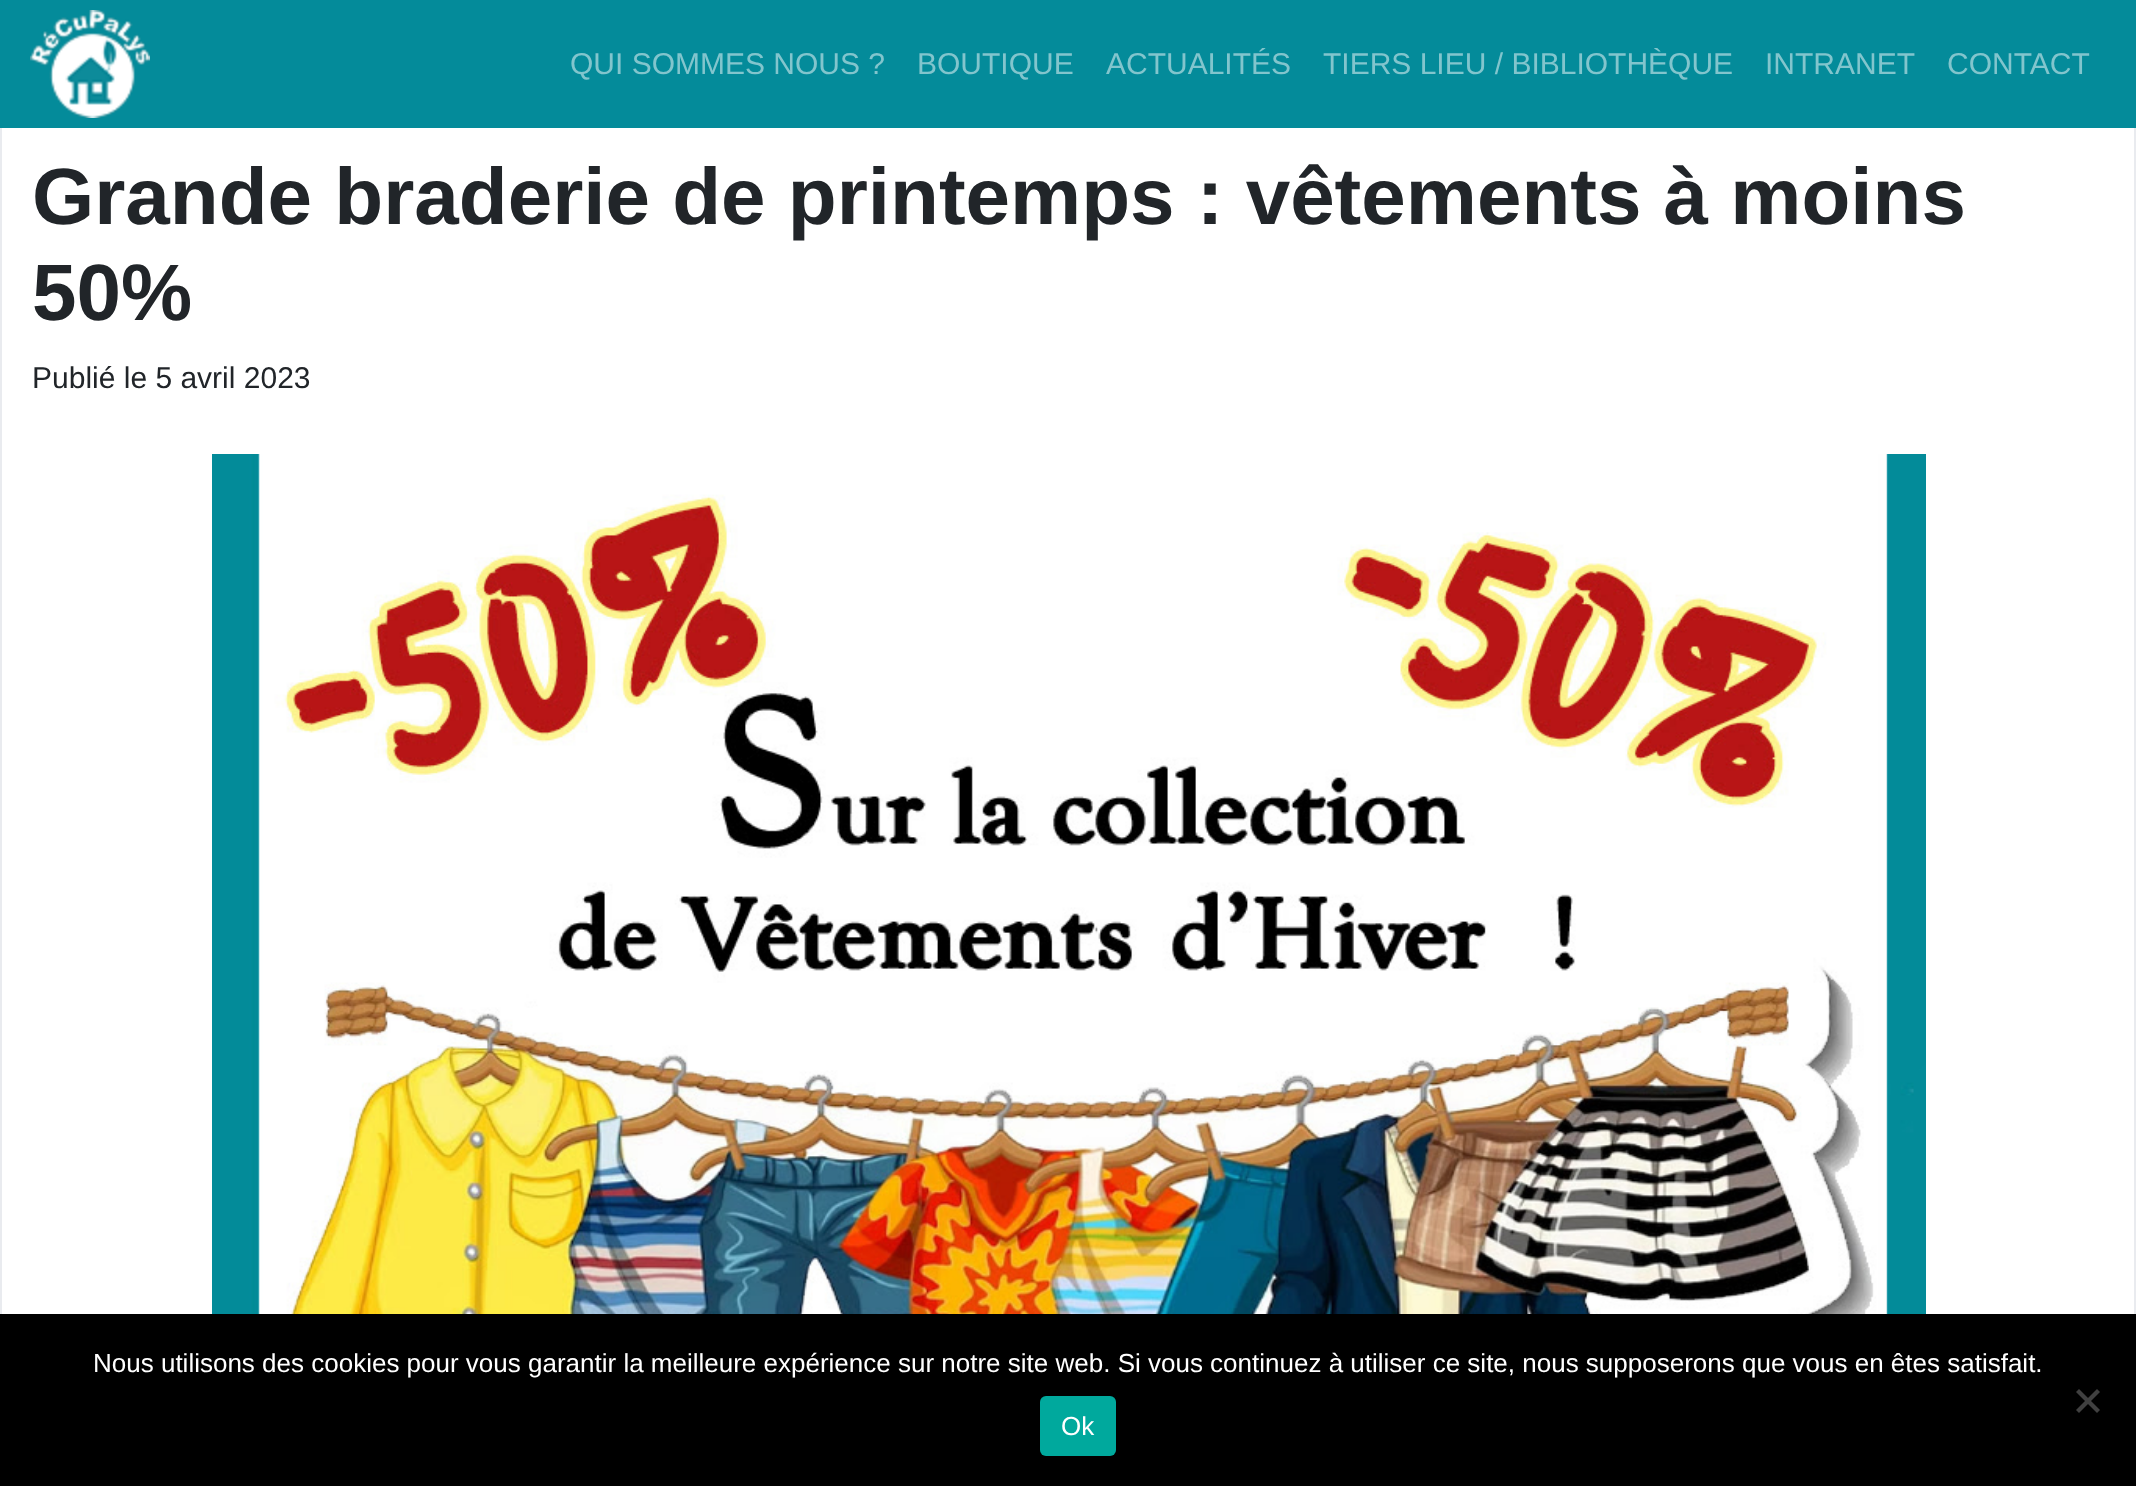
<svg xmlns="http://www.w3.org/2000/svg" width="2136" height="1486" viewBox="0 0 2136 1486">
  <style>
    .t1 { font: 30px Liberation Sans; fill: #82c5cd; }
    .t2 { font: bold 80px Liberation Sans; fill: #212529; }
    .t3 { font: 30px Liberation Sans; fill: #212529; }
    .t4 { font: 26px Liberation Sans; fill: #fff; }
  </style>
  <rect width="100%" height="100%" fill="#fff"/>
  <rect x="0" y="0" width="2136" height="128" fill="#048b9a"/>
  <image x="30" y="10" width="120" height="108" href="images/1.png"/>
  <text x="570" y="74" class="t1">QUI SOMMES NOUS ?</text>
  <text x="917" y="74" class="t1">BOUTIQUE</text>
  <text x="1106" y="74" class="t1">ACTUALITÉS</text>
  <text x="1323" y="74" class="t1">TIERS LIEU / BIBLIOTHÈQUE</text>
  <text x="1765" y="74" class="t1">INTRANET</text>
  <text x="1947" y="74" class="t1">CONTACT</text>
  <rect x="2134" y="128" width="2" height="1186" fill="#e9ebef"/>
  <rect x="0" y="128" width="2" height="1186" fill="#e9ebef"/>
  <text x="32" y="224" class="t2">Grande braderie de printemps : vêtements à moins</text>
  <text x="32" y="320" class="t2">50%</text>
  <text x="32" y="388" class="t3">Publié le 5 avril 2023</text>
  <image x="212" y="454" width="1714" height="860" href="images/2.png"/>
  <rect x="0" y="1314" width="2136" height="172" fill="#000"/>
  <text x="93" y="1372" class="t4">Nous utilisons des cookies pour vous garantir la meilleure expérience sur notre site web. Si vous continuez à utiliser ce site, nous supposerons que vous en êtes satisfait.</text>
  <path d="M2097 1389L2100 1392L2079 1413L2076 1410Z" fill="#404040"/>
  <path d="M2076 1392L2079 1389L2100 1410L2097 1413Z" fill="#404040"/>
  <rect x="1040" y="1396" width="76" height="60" rx="6" fill="#00a99d"/>
  <text x="1061" y="1435" class="t4">Ok</text>
</svg>
